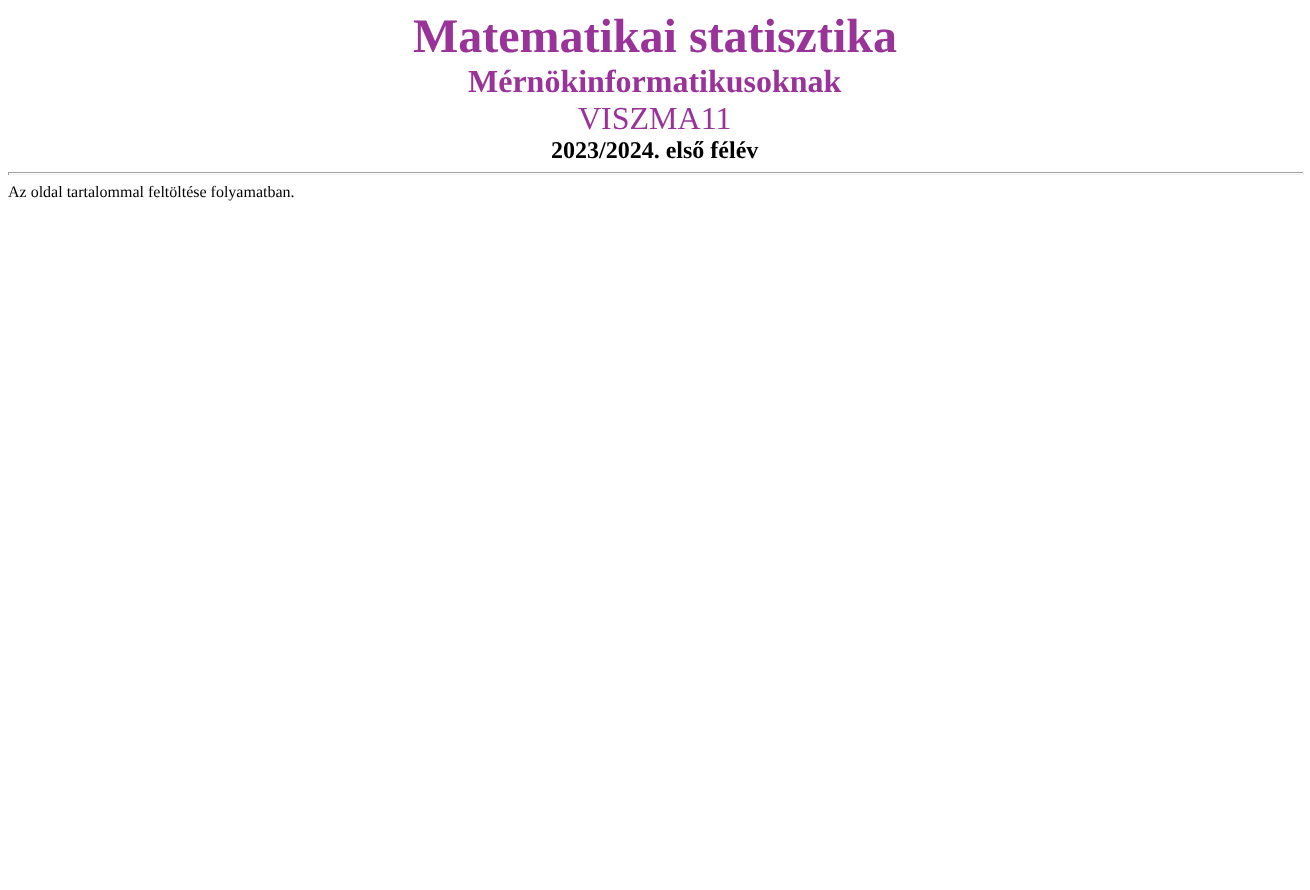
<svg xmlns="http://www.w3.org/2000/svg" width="1310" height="890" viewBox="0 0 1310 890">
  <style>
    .t1 { font: bold 48px Liberation Serif; fill: #939; }
    .t2 { font: bold 32px Liberation Serif; fill: #939; }
    .t3 { font: 32px Liberation Serif; fill: #939; }
    .t4 { font: bold 24px Liberation Serif; fill: #000; }
    .t5 { font: 16px Liberation Serif; fill: #000; }
  </style>
  <rect width="100%" height="100%" fill="#fff"/>
  <text x="413" y="52" class="t1">Matematikai statisztika</text>
  <text x="468" y="92" class="t2">Mérnökinformatikusoknak</text>
  <text x="578" y="129" class="t3">VISZMA11</text>
  <text x="551" y="158" class="t4">2023/2024. első félév</text>
  <rect x="8" y="172" width="1296" height="1" fill="#9f9f9f"/>
  <rect x="1303" y="172" width="1" height="3" fill="#eee"/>
  <rect x="8" y="174" width="1296" height="1" fill="#eee"/>
  <rect x="8" y="172" width="1" height="3" fill="#9f9f9f"/>
  <text x="8" y="197" class="t5">Az oldal tartalommal feltöltése folyamatban.</text>
</svg>
